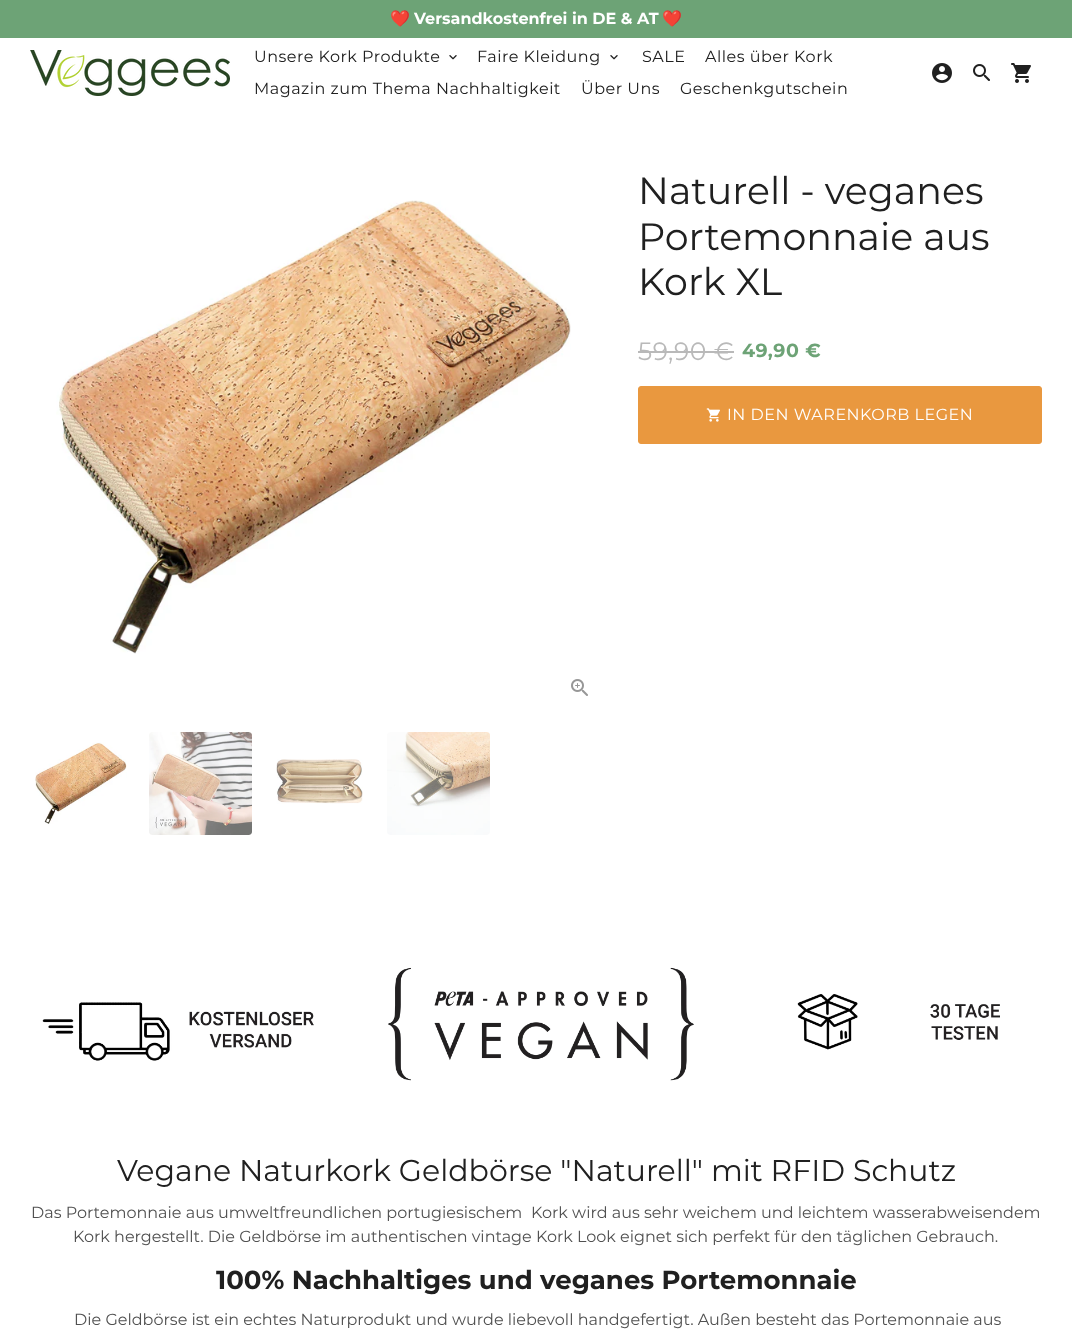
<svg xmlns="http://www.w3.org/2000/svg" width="1072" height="1335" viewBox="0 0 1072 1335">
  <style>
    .t1 { font: 16px Noto Color Emoji; fill: #fff; }
    .t2 { font: bold 16px Montserrat; fill: #fff; }
    .t3 { font: 16px Montserrat; letter-spacing: 0.5px; fill: #202020; }
    .t4 { font: 38px Montserrat; fill: #202020; }
    .t5 { font: 25px Montserrat; letter-spacing: 0.5px; fill: #b9b9b9; }
    .t6 { font: bold 19px Montserrat; letter-spacing: 0.5px; fill: #6da376; }
    .t7 { font: 16px Montserrat; letter-spacing: 0.5px; fill: #fff; }
    .t8 { font: 30px Montserrat; fill: #202020; }
    .t9 { font: 16px Montserrat; fill: #515151; }
    .t10 { font: bold 26px Montserrat; fill: #202020; }
  </style>
  <rect width="100%" height="100%" fill="#fff"/>
  <rect x="0" y="0" width="1072" height="38" fill="#6da376"/>
  <text x="390" y="24" class="t1">❤️</text>
  <text x="414" y="24" class="t2">Versandkostenfrei in DE &amp; AT</text>
  <text x="662" y="24" class="t1">❤️</text>
  <image x="30" y="50" width="200" height="46" href="images/1.png"/>
  <text x="254" y="62" class="t3">Unsere Kork Produkte</text>
  <image x="449" y="55" width="8" height="5" href="images/2.png"/>
  <text x="477" y="62" class="t3">Faire Kleidung</text>
  <image x="610" y="55" width="8" height="5" href="images/2.png"/>
  <text x="642" y="62" class="t3">SALE</text>
  <text x="705" y="62" class="t3">Alles über Kork</text>
  <text x="254" y="94" class="t3">Magazin zum Thema Nachhaltigkeit</text>
  <text x="581" y="94" class="t3">Über Uns</text>
  <text x="680" y="94" class="t3">Geschenkgutschein</text>
  <image x="932" y="63" width="20" height="20" href="images/3.png"/>
  <image x="973" y="64" width="17" height="17" href="images/4.png"/>
  <image x="1011" y="63" width="20" height="20" href="images/5.png"/>
  <image x="56" y="200" width="515" height="454" href="images/6.png"/>
  <image x="571" y="679" width="17" height="17" href="images/7.png"/>
  <image x="35" y="742" width="92" height="82" href="images/8.png"/>
  <image x="149" y="732" width="103" height="103" href="images/9.png"/>
  <image x="276" y="759" width="87" height="45" href="images/10.png"/>
  <image x="387" y="732" width="103" height="103" href="images/11.png"/>
  <text x="638" y="204" class="t4">Naturell - veganes</text>
  <text x="638" y="250" class="t4">Portemonnaie aus</text>
  <text x="638" y="295" class="t4">Kork XL</text>
  <text x="638" y="360" class="t5">59,90 €</text>
  <rect x="638" y="351" width="96" height="2" fill="#b9b9b9"/>
  <text x="742" y="357" class="t6">49,90 €</text>
  <rect x="638.5" y="386.5" width="403" height="57" rx="2.5" fill="#e9983f" stroke="#e9983f"/>
  <image x="706" y="408" width="14" height="14" href="images/12.png"/>
  <text x="727" y="420" class="t7">IN DEN WARENKORB LEGEN</text>
  <image x="42" y="1002" width="272" height="59" href="images/13.png"/>
  <image x="388" y="967" width="306" height="114" href="images/14.png"/>
  <image x="797" y="994" width="203" height="56" href="images/15.png"/>
  <text x="117" y="1181" class="t8">Vegane Naturkork Geldbörse "Naturell" mit RFID Schutz</text>
  <text x="31" y="1218" class="t9">Das Portemonnaie aus umweltfreundlichen portugiesischem</text>
  <text x="531" y="1218" class="t9">Kork wird aus sehr weichem und leichtem wasserabweisendem</text>
  <text x="73" y="1242" class="t9">Kork hergestellt. Die Geldbörse im authentischen vintage Kork Look eignet sich perfekt für den täglichen Gebrauch.</text>
  <text x="216" y="1289" class="t10">100% Nachhaltiges und veganes Portemonnaie</text>
  <text x="74" y="1325" class="t9">Die Geldbörse ist ein echtes Naturprodukt und wurde liebevoll handgefertigt. Außen besteht das Portemonnaie aus</text>
</svg>
